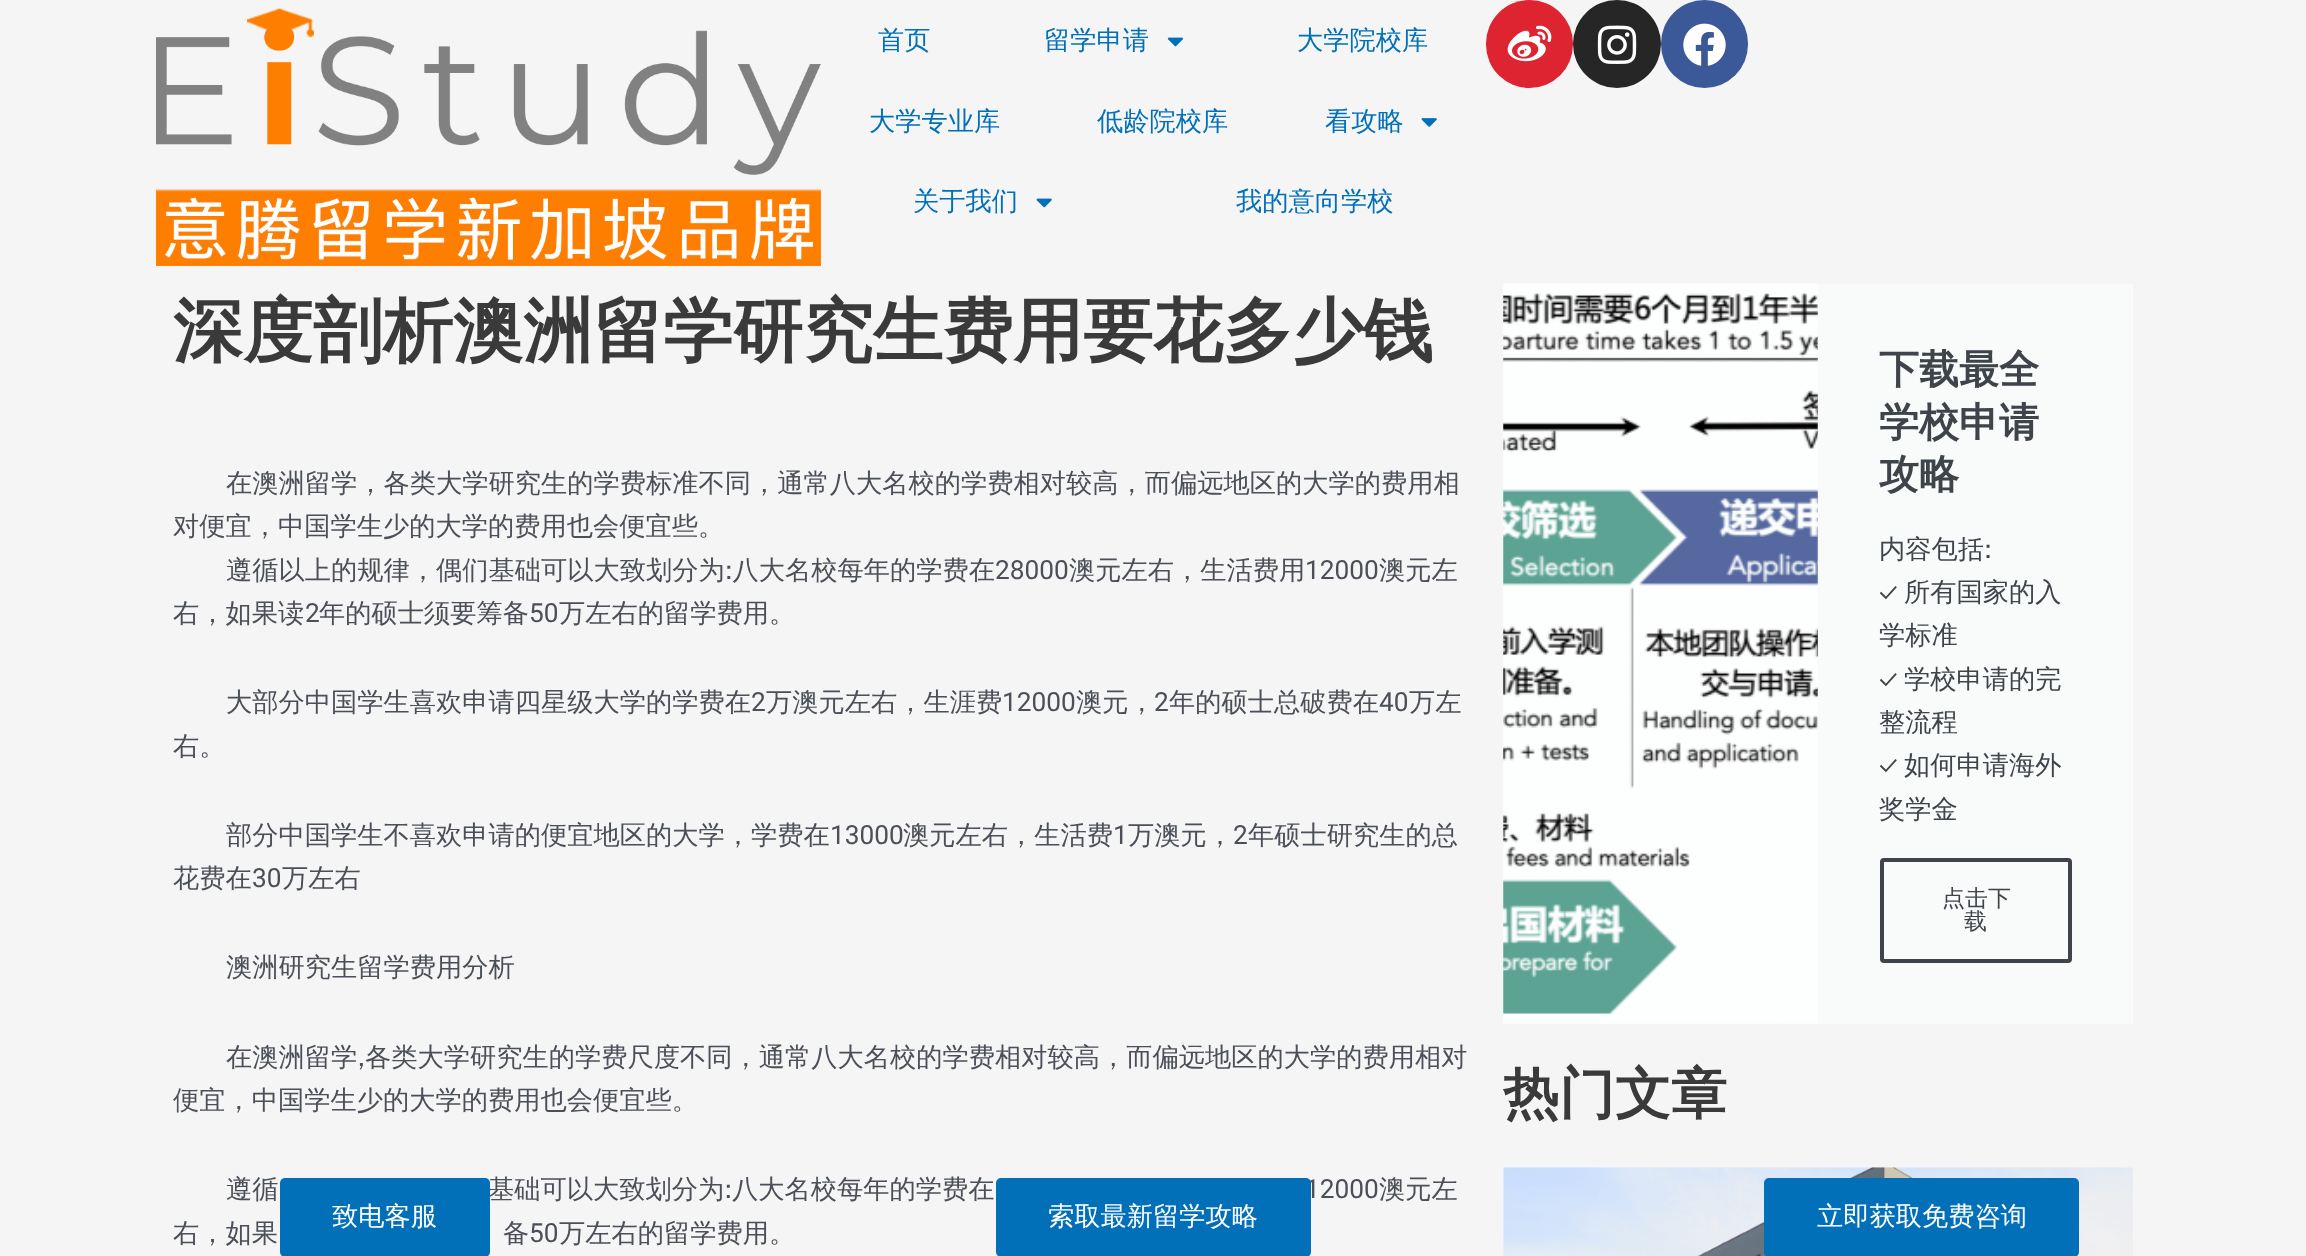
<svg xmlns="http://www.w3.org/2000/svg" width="2306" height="1256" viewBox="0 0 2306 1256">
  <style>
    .t1 { font: 500 26.25px WenQuanYi Zen Hei; fill: #0170b9; }
    .t2 { font: bold 70px WenQuanYi Zen Hei; fill: #3a3a3a; }
    .t3 { font: 500 26.25px WenQuanYi Zen Hei; fill: #4b4f58; }
    .t4 { font: 26.25px Roboto; fill: #4b4f58; }
    .t5 { font: bold 40px WenQuanYi Zen Hei; fill: #3f444b; }
    .t6 { font: 500 26.25px WenQuanYi Zen Hei; fill: #3f444b; }
    .t7 { font: 26.25px Ubuntu; fill: #3f444b; }
    .t8 { font: 500 23px WenQuanYi Zen Hei; fill: #3f444b; }
    .t9 { font: bold 56px WenQuanYi Zen Hei; fill: #3a3a3a; }
    .t10 { font: 500 26.25px WenQuanYi Zen Hei; fill: #fff; }
  </style>
  <rect width="100%" height="100%" fill="#f5f5f5"/>
  <image x="156" y="8" width="665" height="258" href="images/1.png"/>
  <text x="878" y="49" class="t1">首页</text>
  <text x="1044" y="49" class="t1">留学申请</text>
  <image x="1167" y="37" width="16" height="10" href="images/2.png"/>
  <text x="1297" y="49" class="t1">大学院校库</text>
  <text x="869" y="130" class="t1">大学专业库</text>
  <text x="1097" y="130" class="t1">低龄院校库</text>
  <text x="1325" y="130" class="t1">看攻略</text>
  <image x="1421" y="118" width="16" height="9" href="images/3.png"/>
  <text x="913" y="210" class="t1">关于我们</text>
  <image x="1036" y="198" width="16" height="10" href="images/4.png"/>
  <text x="1236" y="210" class="t1">我的意向学校</text>
  <rect x="1486" y="0" width="87" height="88" rx="43.5" fill="#dd2430"/>
  <image x="1507" y="25" width="45" height="37" href="images/5.png"/>
  <circle cx="1617" cy="44" r="44" fill="#262626"/>
  <image x="1597" y="25" width="40" height="39" href="images/6.png"/>
  <rect x="1661" y="0" width="87" height="88" rx="43.5" fill="#3b5998"/>
  <image x="1683" y="23" width="43" height="43" href="images/7.png"/>
  <text x="173" y="355" class="t2">深度剖析澳洲留学研究生费用要花多少钱</text>
  <text x="226" y="492" class="t3">在澳洲留学，各类大学研究生的学费标准不同，通常八大名校的学费相对较高，而偏远地区的大学的费用相</text>
  <text x="173" y="535" class="t3">对便宜，中国学生少的大学的费用也会便宜些。</text>
  <text x="226" y="579" class="t3">遵循以上的规律，偶们基础可以大致划分为:八大名校每年的学费在</text>
  <text x="995" y="579" class="t4">28000</text>
  <text x="1069" y="579" class="t3">澳元左右，生活费用</text>
  <text x="1305" y="579" class="t4">12000</text>
  <text x="1379" y="579" class="t3">澳元左</text>
  <text x="173" y="622" class="t3">右，如果读</text>
  <text x="305" y="622" class="t4">2</text>
  <text x="319" y="622" class="t3">年的硕士须要筹备</text>
  <text x="529" y="622" class="t4">50</text>
  <text x="559" y="622" class="t3">万左右的留学费用。</text>
  <text x="226" y="711" class="t3">大部分中国学生喜欢申请四星级大学的学费在</text>
  <text x="751" y="711" class="t4">2</text>
  <text x="766" y="711" class="t3">万澳元左右，生涯费</text>
  <text x="1002" y="711" class="t4">12000</text>
  <text x="1076" y="711" class="t3">澳元，</text>
  <text x="1154" y="711" class="t4">2</text>
  <text x="1169" y="711" class="t3">年的硕士总破费在</text>
  <text x="1379" y="711" class="t4">40</text>
  <text x="1409" y="711" class="t3">万左</text>
  <text x="173" y="755" class="t3">右。</text>
  <text x="226" y="844" class="t3">部分中国学生不喜欢申请的便宜地区的大学，学费在</text>
  <text x="830" y="844" class="t4">13000</text>
  <text x="903" y="844" class="t3">澳元左右，生活费</text>
  <text x="1113" y="844" class="t4">1</text>
  <text x="1128" y="844" class="t3">万澳元，</text>
  <text x="1233" y="844" class="t4">2</text>
  <text x="1248" y="844" class="t3">年硕士研究生的总</text>
  <text x="173" y="887" class="t3">花费在</text>
  <text x="252" y="887" class="t4">30</text>
  <text x="282" y="887" class="t3">万左右</text>
  <text x="226" y="976" class="t3">澳洲研究生留学费用分析</text>
  <text x="226" y="1066" class="t3">在澳洲留学,各类大学研究生的学费尺度不同，通常八大名校的学费相对较高，而偏远地区的大学的费用相对</text>
  <text x="173" y="1109" class="t3">便宜，中国学生少的大学的费用也会便宜些。</text>
  <text x="226" y="1198" class="t3">遵循</text>
  <text x="488" y="1198" class="t3">基础可以大致划分为:八大名校每年的学费在</text>
  <text x="1305" y="1198" class="t4">12000</text>
  <text x="1379" y="1198" class="t3">澳元左</text>
  <text x="173" y="1242" class="t3">右，如果</text>
  <text x="503" y="1242" class="t3">备</text>
  <text x="529" y="1242" class="t4">50</text>
  <text x="559" y="1242" class="t3">万左右的留学费用。</text>
  <image x="1503" y="283" width="316" height="741" href="images/8.png"/>
  <rect x="1818" y="284" width="315" height="740" fill="#f9fafa"/>
  <text x="1879" y="383" class="t5">下载最全</text>
  <text x="1879" y="436" class="t5">学校申请</text>
  <text x="1879" y="488" class="t5">攻略</text>
  <text x="1879" y="558" class="t6">内容包括:</text>
  <text x="1879" y="601" class="t7">✓</text>
  <text x="1904" y="601" class="t6">所有国家的入</text>
  <text x="1879" y="644" class="t6">学标准</text>
  <text x="1879" y="688" class="t7">✓</text>
  <text x="1904" y="688" class="t6">学校申请的完</text>
  <text x="1879" y="731" class="t6">整流程</text>
  <text x="1879" y="774" class="t7">✓</text>
  <text x="1904" y="774" class="t6">如何申请海外</text>
  <text x="1879" y="818" class="t6">奖学金</text>
  <rect x="1882" y="860" width="188" height="101" rx="2" fill="none" stroke="#3f444b" stroke-width="4"/>
  <text x="1942" y="906" class="t8">点击下</text>
  <text x="1964" y="929" class="t8">载</text>
  <text x="1503" y="1113" class="t9">热门文章</text>
  <image x="1503" y="1167" width="630" height="89" href="images/9.png"/>
  <rect x="280" y="1178" width="210" height="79" rx="5" fill="#0170b9"/>
  <text x="332" y="1225" class="t10">致电客服</text>
  <rect x="996" y="1178" width="315" height="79" rx="5" fill="#0170b9"/>
  <text x="1048" y="1225" class="t10">索取最新留学攻略</text>
  <rect x="1764" y="1178" width="315" height="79" rx="5" fill="#0170b9"/>
  <text x="1817" y="1225" class="t10">立即获取免费咨询</text>
</svg>
